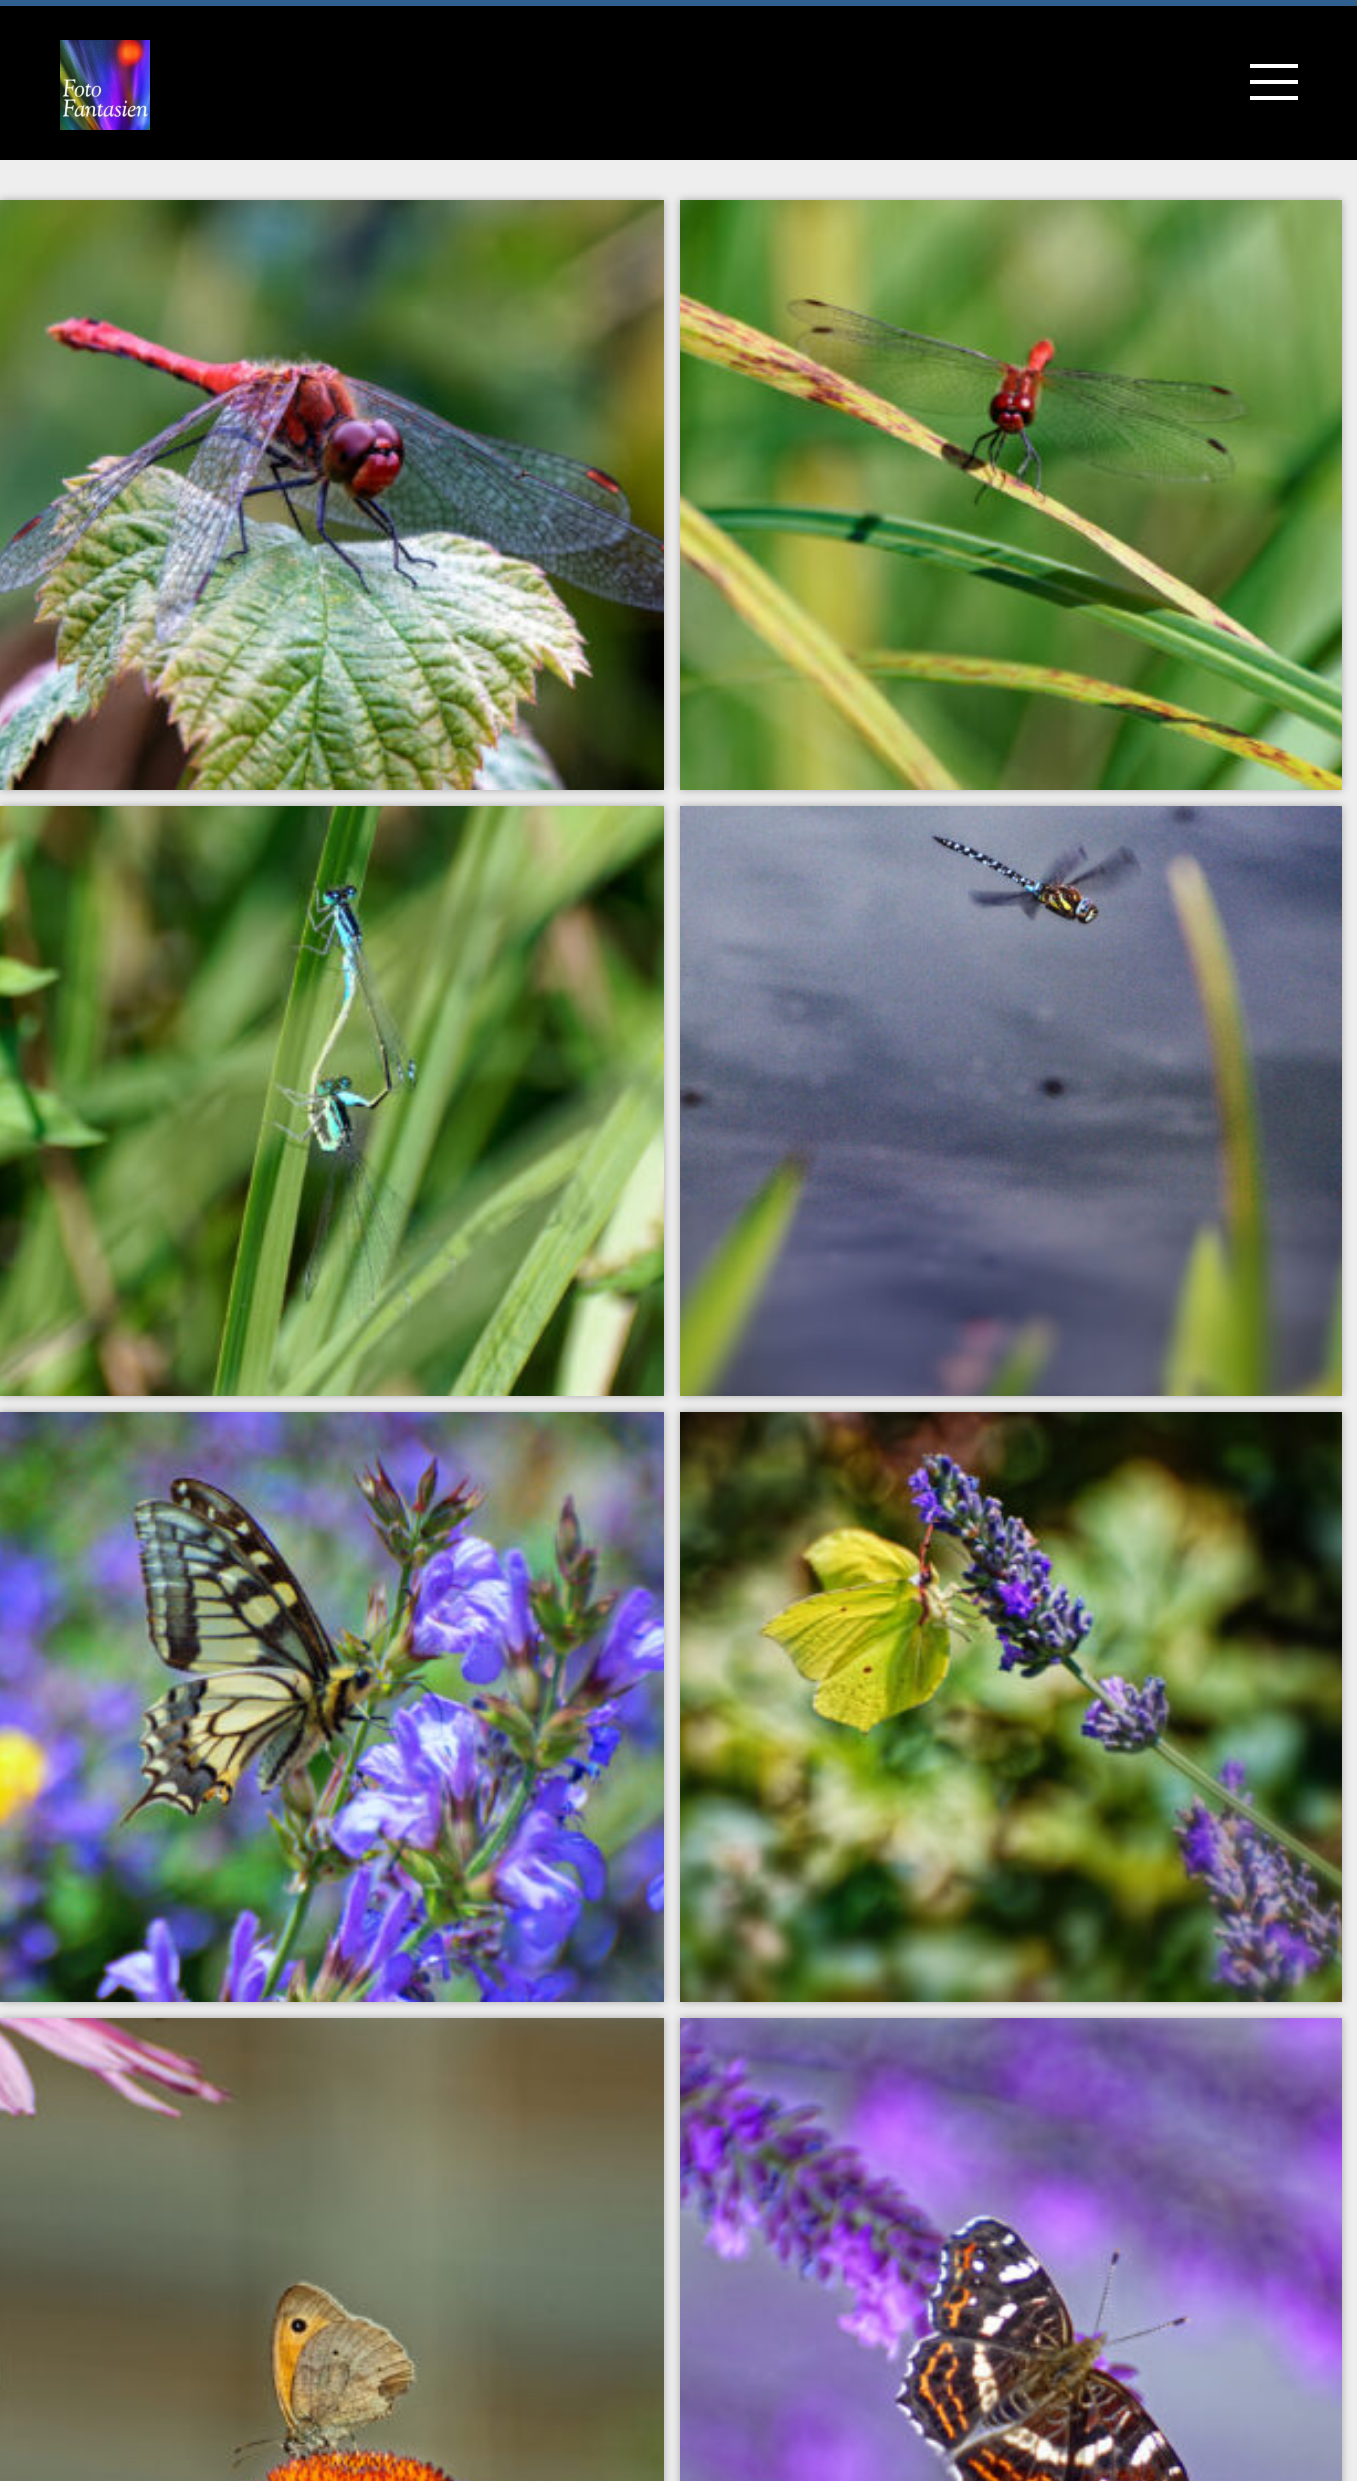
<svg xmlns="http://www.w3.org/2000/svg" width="1357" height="2481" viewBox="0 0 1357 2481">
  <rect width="100%" height="100%" fill="#eee"/>
  <rect x="0" y="0" width="1357" height="6" fill="#306090"/>
  <rect x="0" y="6" width="1357" height="154" fill="#000"/>
  <image x="60" y="40" width="90" height="90" href="images/1.png"/>
  <rect x="1250" y="80" width="48" height="4" fill="#fff"/>
  <rect x="1250" y="64" width="48" height="4" fill="#fff"/>
  <rect x="1250" y="96" width="48" height="4" fill="#fff"/>
  <rect x="0" y="200" width="664" height="590" fill="#0000004d" filter="blur(4px)"/>
  <image x="0" y="200" width="664" height="590" href="images/2.png"/>
  <rect x="680" y="200" width="662" height="590" fill="#0000004d" filter="blur(4px)"/>
  <image x="680" y="200" width="662" height="590" href="images/3.png"/>
  <rect x="0" y="806" width="664" height="590" fill="#0000004d" filter="blur(4px)"/>
  <image x="0" y="806" width="664" height="590" href="images/4.png"/>
  <rect x="680" y="806" width="662" height="590" fill="#0000004d" filter="blur(4px)"/>
  <image x="680" y="806" width="662" height="590" href="images/5.png"/>
  <rect x="0" y="1412" width="664" height="590" fill="#0000004d" filter="blur(4px)"/>
  <image x="0" y="1412" width="664" height="590" href="images/6.png"/>
  <rect x="680" y="1412" width="662" height="590" fill="#0000004d" filter="blur(4px)"/>
  <image x="680" y="1412" width="662" height="590" href="images/7.png"/>
  <rect x="0" y="2018" width="664" height="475" fill="#0000004d" filter="blur(4px)"/>
  <image x="0" y="2018" width="664" height="463" href="images/8.png"/>
  <rect x="680" y="2018" width="662" height="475" fill="#0000004d" filter="blur(4px)"/>
  <image x="680" y="2018" width="662" height="463" href="images/9.png"/>
</svg>
